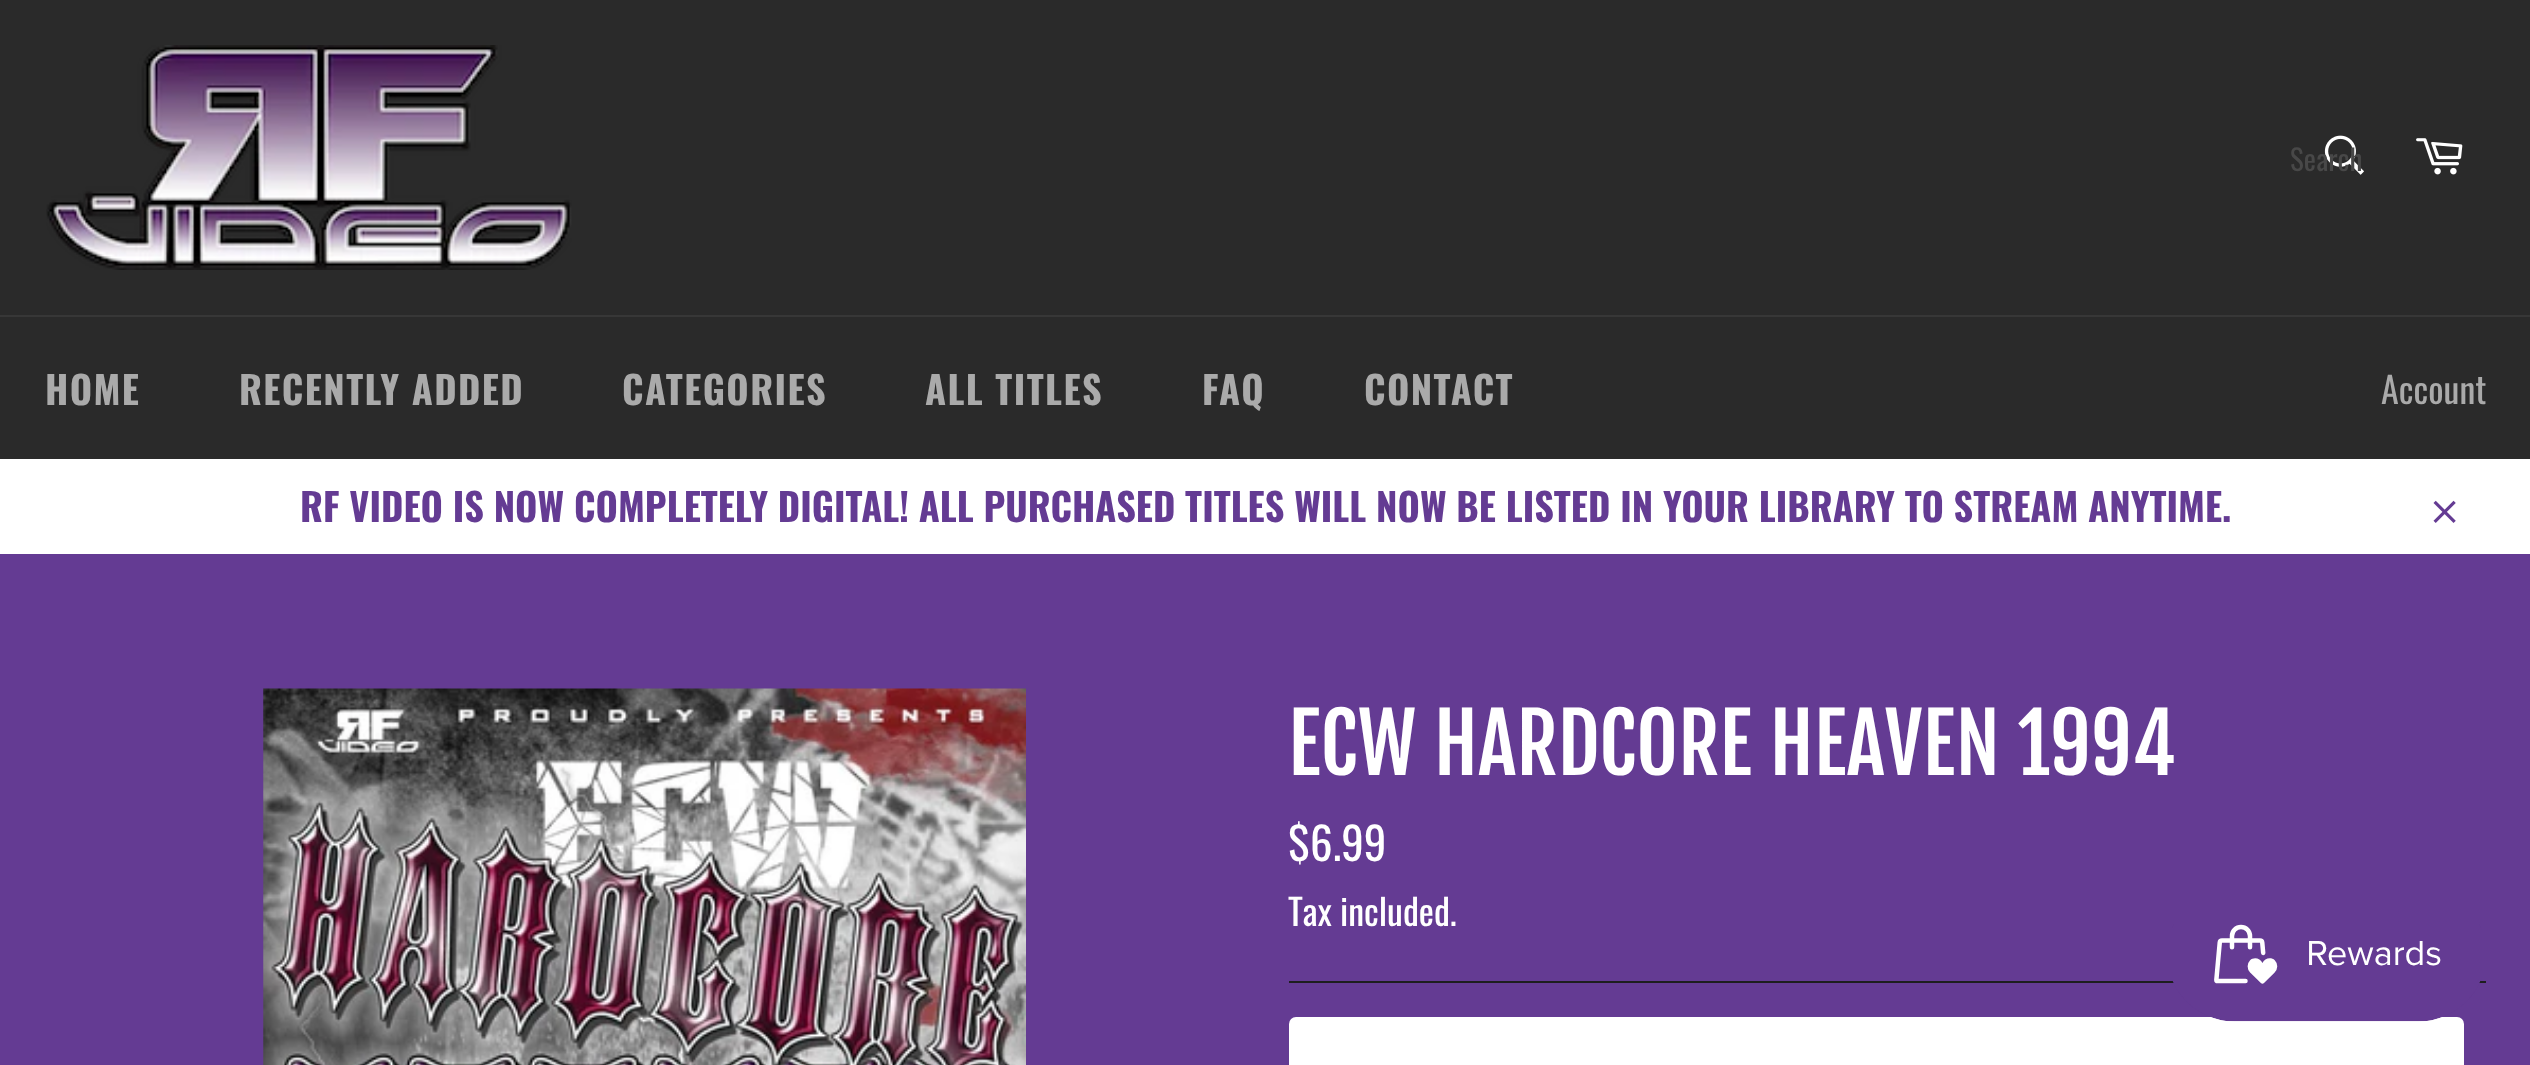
<svg xmlns="http://www.w3.org/2000/svg" width="2530" height="1065" viewBox="0 0 2530 1065">
  <style>
    .t1 { font: 29px Oswald; fill: #484848; }
    .t2 { font: bold 38.25px Oswald; letter-spacing: 1.4px; fill: #aaa; }
    .t3 { font: 36px Oswald; fill: #aaa; }
    .t4 { font: bold 38.25px Oswald; fill: #643b93; }
    .t5 { font: 81px Fjalla One; fill: #fff; }
    .t6 { font: 45px Oswald; fill: #fff; }
    .t7 { font: 36px Oswald; fill: #fff; }
  </style>
  <rect width="100%" height="100%" fill="#2a2a2a"/>
  <image x="46" y="45" width="526" height="225" href="images/1.png"/>
  <image x="2324" y="135" width="40" height="40" href="images/2.png"/>
  <text x="2290" y="171" class="t1">Search</text>
  <image x="2416" y="138" width="47" height="37" href="images/3.png"/>
  <rect x="0" y="315" width="2530" height="2" fill="#373737"/>
  <text x="45" y="405" class="t2">HOME</text>
  <text x="239" y="405" class="t2">RECENTLY ADDED</text>
  <text x="622" y="405" class="t2">CATEGORIES</text>
  <text x="925" y="405" class="t2">ALL TITLES</text>
  <text x="1202" y="405" class="t2">FAQ</text>
  <text x="1364" y="405" class="t2">CONTACT</text>
  <text x="2381" y="404" class="t3">Account</text>
  <rect x="0" y="459" width="2530" height="95" fill="#fff"/>
  <text x="300" y="522" class="t4">RF VIDEO IS NOW COMPLETELY DIGITAL! ALL PURCHASED TITLES WILL NOW BE LISTED IN YOUR LIBRARY TO STREAM ANYTIME.</text>
  <image x="2433" y="500" width="23" height="23" href="images/4.png"/>
  <rect x="0" y="554" width="2530" height="511" fill="#643b93"/>
  <image x="263" y="688" width="763" height="377" href="images/5.png"/>
  <text x="1288" y="775" class="t5">ECW HARDCORE HEAVEN 1994</text>
  <text x="1288" y="861" class="t6">$6.99</text>
  <text x="1288" y="926" class="t7">Tax included.</text>
  <rect x="1289" y="981" width="1197" height="2" fill="#1e1e1e"/>
  <rect x="1289" y="1017" width="1175" height="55" rx="7" fill="#fff"/>
  <image x="2172" y="924" width="309" height="98" href="images/6.png"/>
</svg>
